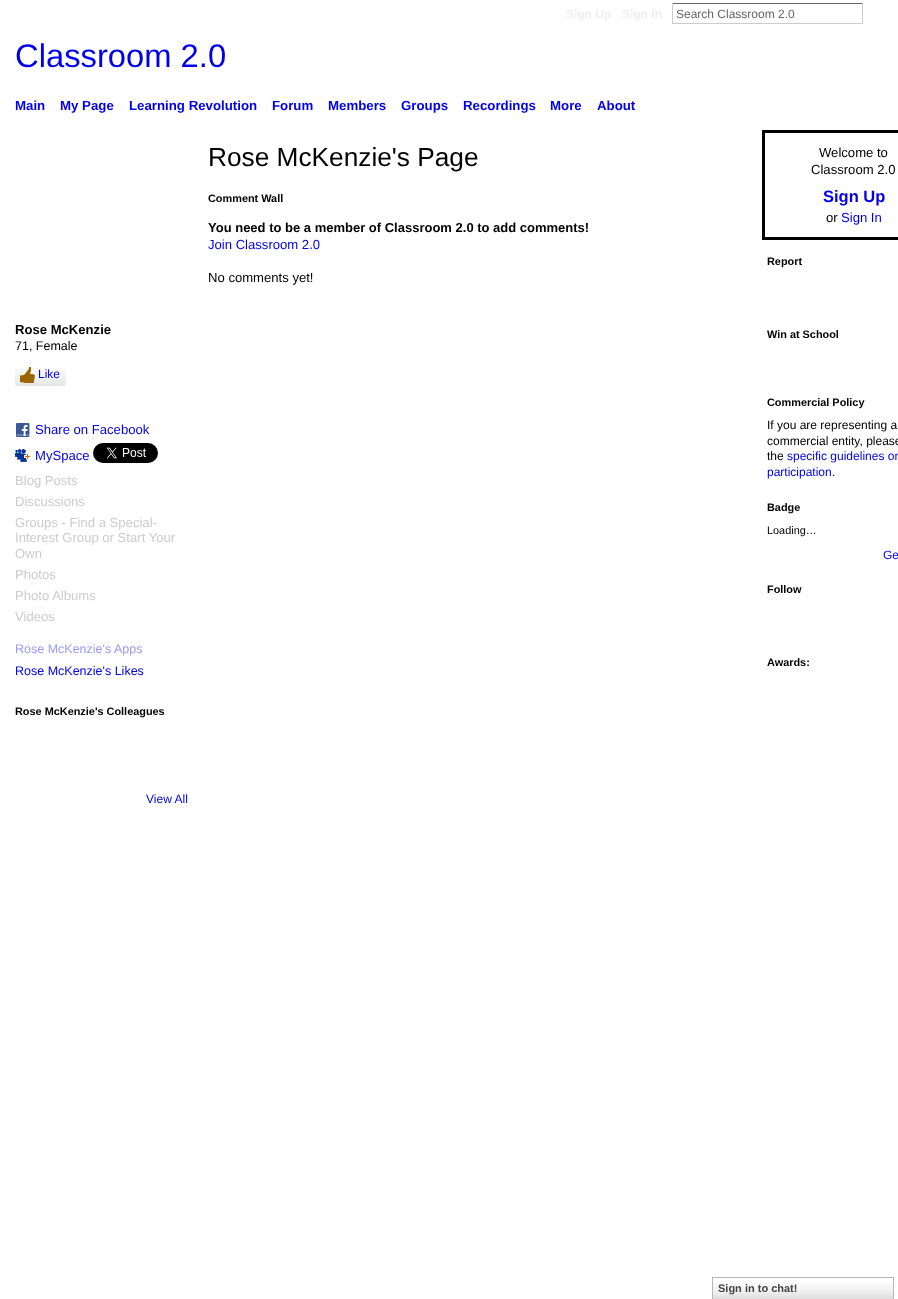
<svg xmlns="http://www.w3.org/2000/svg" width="898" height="1299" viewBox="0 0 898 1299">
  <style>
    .t1 { font: bold 12px Liberation Sans; fill: #eee; }
    .t2 { font: 12px Liberation Sans; fill: #666; }
    .t3 { font: 32.75px Liberation Sans; fill: #00e; }
    .t4 { font: bold 13.25px Liberation Sans; fill: #00e; }
    .t5 { font: 26.25px Liberation Sans; fill: #000; }
    .t6 { font: bold 10.9px Liberation Sans; fill: #000; }
    .t7 { font: bold 13px Liberation Sans; fill: #000; }
    .t8 { font: 13.1px Liberation Sans; fill: #00e; }
    .t9 { font: 13.1px Liberation Sans; fill: #000; }
    .t10 { font: bold 13.1px Liberation Sans; fill: #000; }
    .t11 { font: 12.5px Liberation Sans; fill: #000; }
    .t12 { font: 12px Liberation Sans; fill: #00e; }
    .t13 { font: 13.1px Liberation Sans; fill: #ccc; }
    .t14 { font: 12.5px Liberation Sans; fill: #9999f8; }
    .t15 { font: 12.5px Liberation Sans; fill: #00e; }
    .t16 { font: bold 16.5px Liberation Sans; fill: #00e; }
    .t17 { font: 12px Liberation Sans; fill: #000; }
    .t18 { font: 10.9px Liberation Sans; fill: #000; }
    .t19 { font: bold 11px Liberation Sans; fill: #454545; }
  </style>
  <rect width="100%" height="100%" fill="#fff"/>
  <text x="566" y="18" class="t1">Sign Up</text>
  <text x="622" y="18" class="t1">Sign In</text>
  <rect x="672" y="3" width="191" height="1" fill="#666"/>
  <rect x="862" y="3" width="1" height="21" fill="#ccc"/>
  <rect x="672" y="23" width="191" height="1" fill="#ccc"/>
  <rect x="672" y="3" width="1" height="21" fill="#ccc"/>
  <text x="676" y="18" class="t2">Search Classroom 2.0</text>
  <text x="15" y="67" class="t3">Classroom 2.0</text>
  <text x="15" y="110" class="t4">Main</text>
  <text x="60" y="110" class="t4">My Page</text>
  <text x="129" y="110" class="t4">Learning Revolution</text>
  <text x="272" y="110" class="t4">Forum</text>
  <text x="328" y="110" class="t4">Members</text>
  <text x="401" y="110" class="t4">Groups</text>
  <text x="463" y="110" class="t4">Recordings</text>
  <text x="550" y="110" class="t4">More</text>
  <text x="597" y="110" class="t4">About</text>
  <text x="208" y="166" class="t5">Rose McKenzie's Page</text>
  <text x="208" y="202" class="t6">Comment Wall</text>
  <text x="208" y="232" class="t7">You need to be a member of Classroom 2.0 to add comments!</text>
  <text x="208" y="249" class="t8">Join Classroom 2.0</text>
  <text x="208" y="282" class="t9">No comments yet!</text>
  <text x="15" y="334" class="t10">Rose McKenzie</text>
  <text x="15" y="350" class="t11">71, Female</text>
  <image x="15" y="368" width="51" height="18" href="images/1.png"/>
  <image x="20" y="367" width="15" height="16" href="images/2.png"/>
  <text x="38" y="378" class="t12">Like</text>
  <image x="16" y="423" width="14" height="14" href="images/3.png"/>
  <text x="35" y="434" class="t8">Share on Facebook</text>
  <image x="15" y="449" width="15" height="13" href="images/4.png"/>
  <text x="35" y="460" class="t8">MySpace</text>
  <image x="93" y="443" width="65" height="20" href="images/5.png"/>
  <text x="15" y="485" class="t13">Blog Posts</text>
  <text x="15" y="506" class="t13">Discussions</text>
  <text x="15" y="527" class="t13">Groups - Find a Special-</text>
  <text x="15" y="542" class="t13">Interest Group or Start Your</text>
  <text x="15" y="558" class="t13">Own</text>
  <text x="15" y="579" class="t13">Photos</text>
  <text x="15" y="600" class="t13">Photo Albums</text>
  <text x="15" y="621" class="t13">Videos</text>
  <text x="15" y="653" class="t14">Rose McKenzie's Apps</text>
  <text x="15" y="675" class="t15">Rose McKenzie's Likes</text>
  <text x="15" y="715" class="t6">Rose McKenzie's Colleagues</text>
  <text x="146" y="803" class="t12">View All</text>
  <rect x="763.5" y="131.5" width="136" height="107" fill="none" stroke="#000" stroke-width="3"/>
  <text x="819" y="157" class="t9">Welcome to</text>
  <text x="811" y="174" class="t9">Classroom 2.0</text>
  <text x="823" y="202" class="t16">Sign Up</text>
  <text x="826" y="222" class="t9">or</text>
  <text x="841" y="222" class="t8">Sign In</text>
  <text x="767" y="265" class="t6">Report</text>
  <text x="767" y="338" class="t6">Win at School</text>
  <text x="767" y="406" class="t6">Commercial Policy</text>
  <text x="767" y="429" class="t17">If you are representing a</text>
  <text x="767" y="445" class="t17">commercial entity, please</text>
  <text x="767" y="460" class="t17">the</text>
  <text x="787" y="460" class="t12">specific guidelines on</text>
  <text x="767" y="476" class="t12">participation</text>
  <text x="832" y="476" class="t17">.</text>
  <text x="767" y="511" class="t6">Badge</text>
  <text x="767" y="534" class="t18">Loading…</text>
  <text x="883" y="559" class="t12">Ge</text>
  <text x="767" y="593" class="t6">Follow</text>
  <text x="767" y="666" class="t6">Awards:</text>
  <image x="713" y="1283" width="180" height="16" href="images/6.png"/>
  <rect x="712.5" y="1277.5" width="181" height="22" fill="none" stroke="#b7b7b7"/>
  <text x="718" y="1292" class="t19">Sign in to chat!</text>
</svg>
